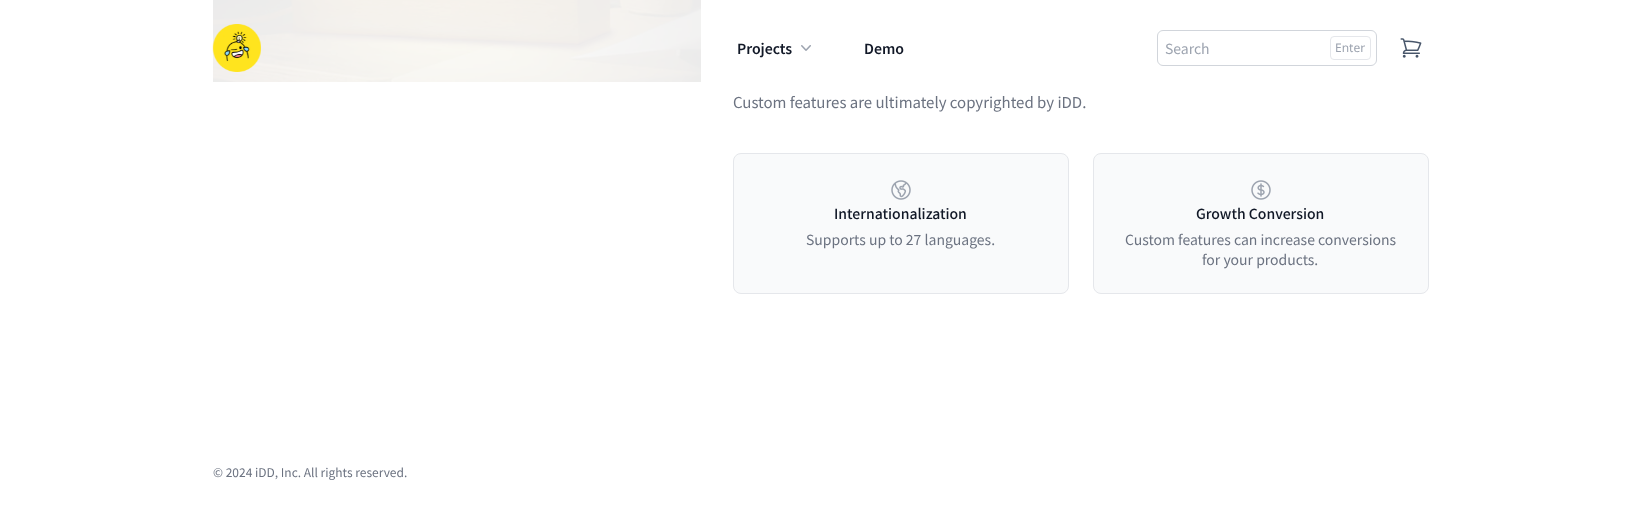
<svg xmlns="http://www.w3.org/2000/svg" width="1641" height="530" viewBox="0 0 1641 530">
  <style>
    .t1 { font: 15px Noto Sans SC; fill: #6b7280; }
    .t2 { font: 600 14px Noto Sans SC; fill: #111827; }
    .t3 { font: 14px Noto Sans SC; fill: #9ca3af; }
    .t4 { font: 12px Noto Sans; fill: #9ca3af; }
    .t5 { font: 500 14px Noto Sans SC; fill: #111827; }
    .t6 { font: 14px Noto Sans SC; fill: #6b7280; }
    .t7 { font: 12px Noto Sans SC; fill: #6b7280; }
  </style>
  <rect width="100%" height="100%" fill="#fff"/>
  <image x="213" y="0" width="488" height="82" href="images/4.png"/>
  <text x="733" y="108" class="t1">Custom features are ultimately copyrighted by iDD.</text>
  <rect x="213" y="0" width="581" height="96" fill="#ffffffeb"/>
  <image x="212" y="24" width="49" height="48" href="images/1.png"/>
  <text x="737" y="54" class="t2">Projects</text>
  <image x="801" y="45" width="10" height="6" href="images/2.png"/>
  <text x="864" y="54" class="t2">Demo</text>
  <rect x="1157.5" y="30.5" width="219" height="35" rx="5.5" fill="none" stroke="#d1d5db"/>
  <text x="1165" y="54" class="t3">Search</text>
  <rect x="1330.5" y="36.5" width="40" height="23" rx="3.5" fill="none" stroke="#e5e7eb"/>
  <text x="1335" y="52" class="t4">Enter</text>
  <image x="1400" y="38" width="22" height="20" href="images/3.png"/>
  <rect x="733.5" y="153.5" width="335" height="140" rx="7.5" fill="#f9fafb" stroke="#e5e7eb"/>
  <image x="891" y="180" width="20" height="20" href="images/5.png"/>
  <text x="834" y="219" class="t5">Internationalization</text>
  <text x="806" y="245" class="t6">Supports up to 27 languages.</text>
  <rect x="1093.5" y="153.5" width="335" height="140" rx="7.5" fill="#f9fafb" stroke="#e5e7eb"/>
  <image x="1251" y="180" width="20" height="20" href="images/6.png"/>
  <text x="1196" y="219" class="t5">Growth Conversion</text>
  <text x="1125" y="245" class="t6">Custom features can increase conversions</text>
  <text x="1202" y="265" class="t6">for your products.</text>
  <text x="213" y="477" class="t7">© 2024 iDD, Inc. All rights reserved.</text>
</svg>
